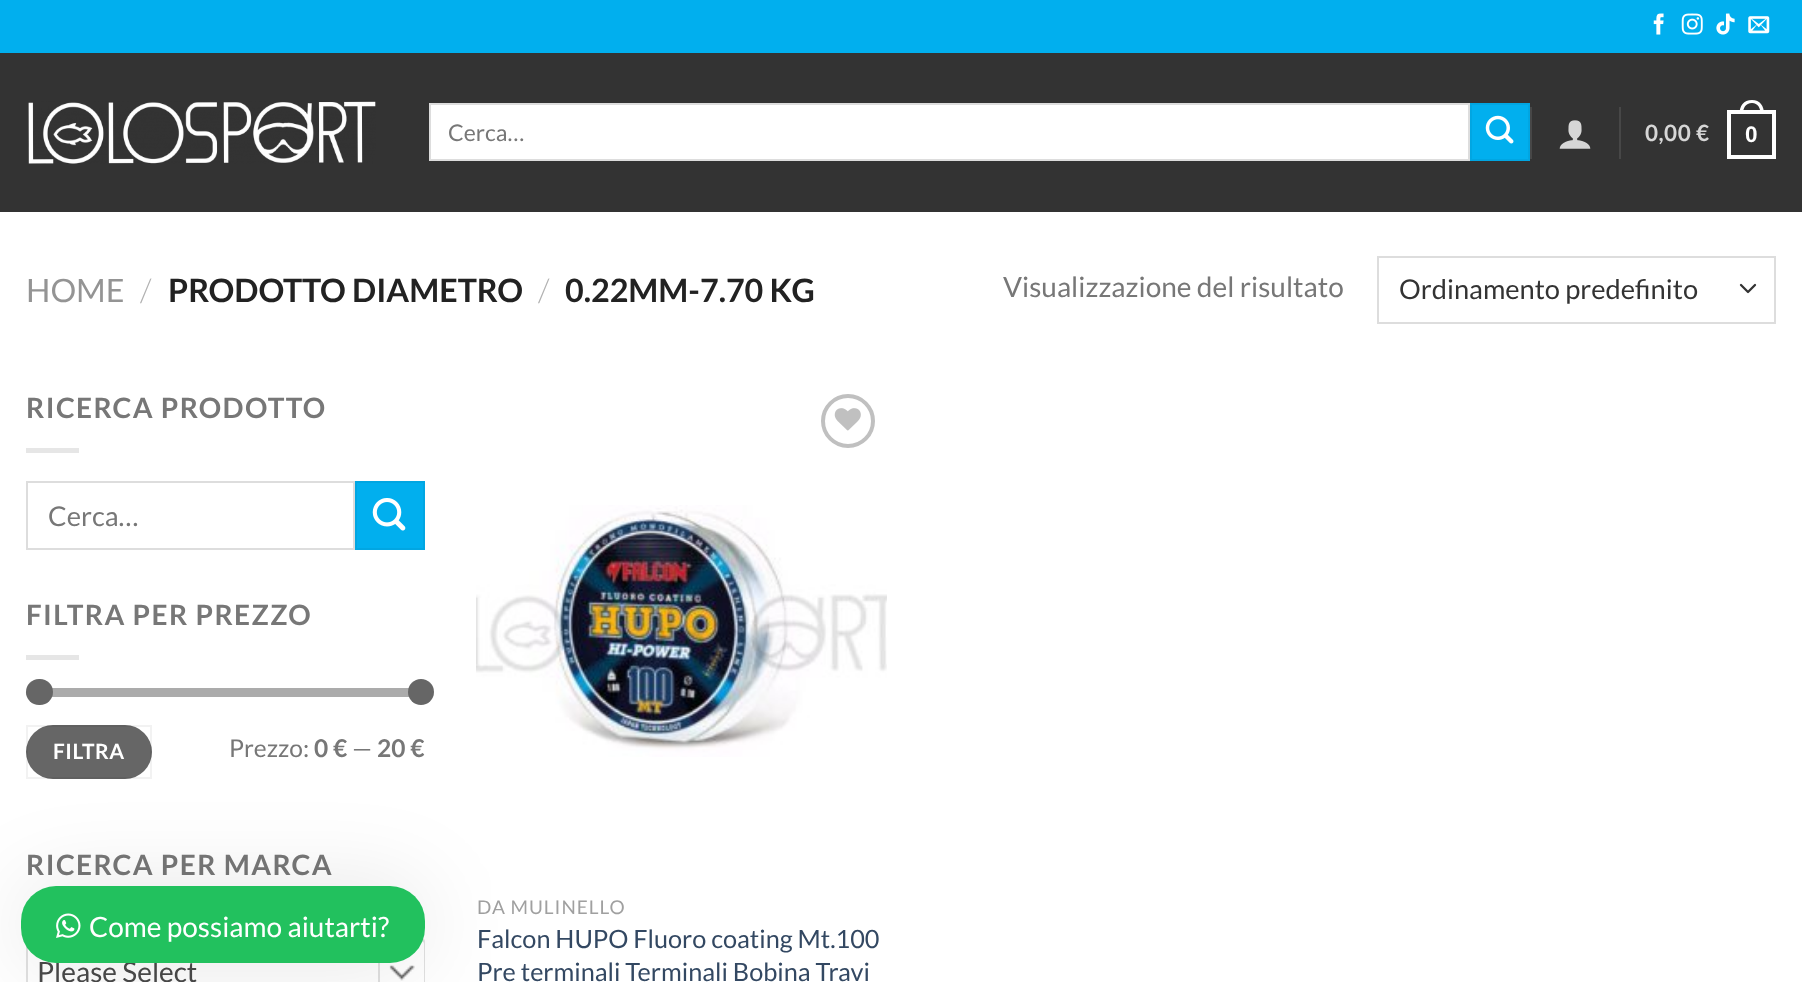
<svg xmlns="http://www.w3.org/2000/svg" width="1802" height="982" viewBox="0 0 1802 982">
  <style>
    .t1 { font: 23px Lato; fill: #777; }
    .t2 { font: bold 22.5px Lato; letter-spacing: 0.5px; fill: #d6d6d6; }
    .t3 { font: bold 22.5px Liberation Sans; letter-spacing: 0.5px; fill: #fff; }
    .t4 { font: 32.25px Lato; fill: #949494; }
    .t5 { font: 300 32.25px Lato; fill: #b2b2b2; }
    .t6 { font: bold 32.25px Lato; fill: #222; }
    .t7 { font: 28px Lato; fill: #777; }
    .t8 { font: 27.25px Lato; fill: #333; }
    .t9 { font: bold 28px Lato; letter-spacing: 1.4px; fill: #777; }
    .t10 { font: 27.25px Lato; fill: #777; }
    .t11 { font: bold 21px Lato; letter-spacing: 0.5px; fill: #fff; }
    .t12 { font: 24.5px Lato; fill: #777; }
    .t13 { font: bold 24.5px Lato; fill: #777; }
    .t14 { font: 28px Lato; fill: #4a4a4a; }
    .t15 { font: 19px Lato; letter-spacing: 1px; fill: #a0a0a0; }
    .t16 { font: 25.25px Lato; fill: #334862; }
    .t17 { font: 28px Lato; fill: #fff; }
  </style>
  <rect width="100%" height="100%" fill="#fff"/>
  <rect x="0" y="0" width="1802" height="53" fill="#01afee"/>
  <image x="1653" y="13" width="11" height="22" href="images/1.png"/>
  <image x="1681" y="13" width="22" height="22" href="images/2.png"/>
  <image x="1716" y="13" width="19" height="22" href="images/3.png"/>
  <image x="1748" y="16" width="22" height="18" href="images/4.png"/>
  <rect x="0" y="53" width="1802" height="159" fill="#333"/>
  <image x="28" y="101" width="348" height="63" href="images/5.png"/>
  <rect x="430" y="104" width="1039" height="56" fill="#fff" stroke="#ddd" stroke-width="2"/>
  <text x="448" y="141" class="t1">Cerca…</text>
  <rect x="1471" y="104" width="58" height="56" fill="#01afee" stroke="#01a6e2" stroke-width="2"/>
  <image x="1485" y="115" width="29" height="29" href="images/6.png"/>
  <rect x="1530" y="107" width="2" height="52" fill="#474747"/>
  <image x="1559" y="120" width="32" height="29" href="images/7.png"/>
  <rect x="1619" y="107" width="2" height="52" fill="#474747"/>
  <text x="1645" y="141" class="t2">0,00 €</text>
  <rect x="1729" y="112" width="45" height="45" fill="none" stroke="#fff" stroke-width="4"/>
  <path d="M1752 100C1760 100 1764 106 1764 114H1739.5C1739.5 106 1743.5 100 1752 100ZM1752 103C1758 103 1760.5 108 1760.5 114H1743C1743 108 1745.5 103 1752 103Z" fill="#fff" fill-rule="evenodd"/>
  <text x="1745" y="142" class="t3">0</text>
  <text x="26" y="302" class="t4">HOME</text>
  <text x="140" y="302" class="t5">/</text>
  <text x="168" y="302" class="t6">PRODOTTO DIAMETRO</text>
  <text x="538" y="302" class="t5">/</text>
  <text x="565" y="302" class="t6">0.22MM-7.70 KG</text>
  <text x="1003" y="297" class="t7">Visualizzazione del risultato</text>
  <path d="M1741 285L1748 292L1755 285" fill="none" stroke="#333" stroke-width="2.3" stroke-linecap="round" stroke-linejoin="round"/>
  <rect x="1378" y="257" width="397" height="66" fill="none" stroke="#ddd" stroke-width="2"/>
  <text x="1399" y="299" class="t8">Ordinamento predefinito</text>
  <text x="26" y="418" class="t9">RICERCA PRODOTTO</text>
  <rect x="26" y="448" width="53" height="5" fill="#e6e6e6"/>
  <rect x="27" y="482" width="327" height="67" fill="none" stroke="#ddd" stroke-width="2"/>
  <text x="48" y="526" class="t10">Cerca…</text>
  <rect x="356" y="482" width="68" height="67" fill="#01afee" stroke="#01a6e2" stroke-width="2"/>
  <image x="372" y="498" width="34" height="33" href="images/8.png"/>
  <text x="26" y="625" class="t9">FILTRA PER PREZZO</text>
  <rect x="26" y="655" width="53" height="5" fill="#e6e6e6"/>
  <rect x="26" y="688" width="399" height="9" rx="4.5" fill="#f1f1f1"/>
  <rect x="26" y="688" width="399" height="9" rx="4.5" fill="#66666680"/>
  <rect x="26" y="679" width="27" height="26" rx="13" fill="#666"/>
  <circle cx="421" cy="692" r="13" fill="#666"/>
  <rect x="26" y="725" width="126" height="54" rx="27" fill="#666"/>
  <rect x="27" y="726" width="124" height="52" fill="none" stroke="#0000000d" stroke-width="2"/>
  <text x="53" y="759" class="t11">FILTRA</text>
  <text x="229" y="757" class="t12">Prezzo:</text>
  <text x="314" y="757" class="t13">0 €</text>
  <text x="352" y="757" class="t12">—</text>
  <text x="377" y="757" class="t13">20 €</text>
  <text x="26" y="875" class="t9">RICERCA PER MARCA</text>
  <rect x="27" y="939" width="397" height="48" rx="3" fill="none" stroke="#e1e1e1" stroke-width="2"/>
  <path d="M32 940H420C422 940 424 942 424 944V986H28V944C28 942 30 940 32 940Z" fill="#fff"/>
  <text x="37" y="982" class="t14">Please Select</text>
  <rect x="378" y="963" width="2" height="19" fill="#e1e1e1"/>
  <image x="389" y="965" width="26" height="16" href="images/9.png"/>
  <circle cx="848" cy="421" r="25" fill="none" stroke="#c0c0c0" stroke-width="4"/>
  <image x="834" y="408" width="27" height="23" href="images/10.png"/>
  <image x="476" y="505" width="411" height="252" href="images/11.png"/>
  <text x="477" y="914" class="t15">DA MULINELLO</text>
  <text x="477" y="948" class="t16">Falcon HUPO Fluoro coating Mt.100</text>
  <text x="477" y="981" class="t16">Pre terminali Terminali Bobina Travi</text>
  <rect x="21" y="886" width="404" height="77" rx="35" fill="#0000001a" filter="blur(44px)"/>
  <rect x="21" y="886" width="404" height="77" rx="35" fill="#22c15e"/>
  <image x="56" y="913" width="25" height="25" href="images/12.png"/>
  <text x="89" y="937" class="t17">Come possiamo aiutarti?</text>
</svg>
